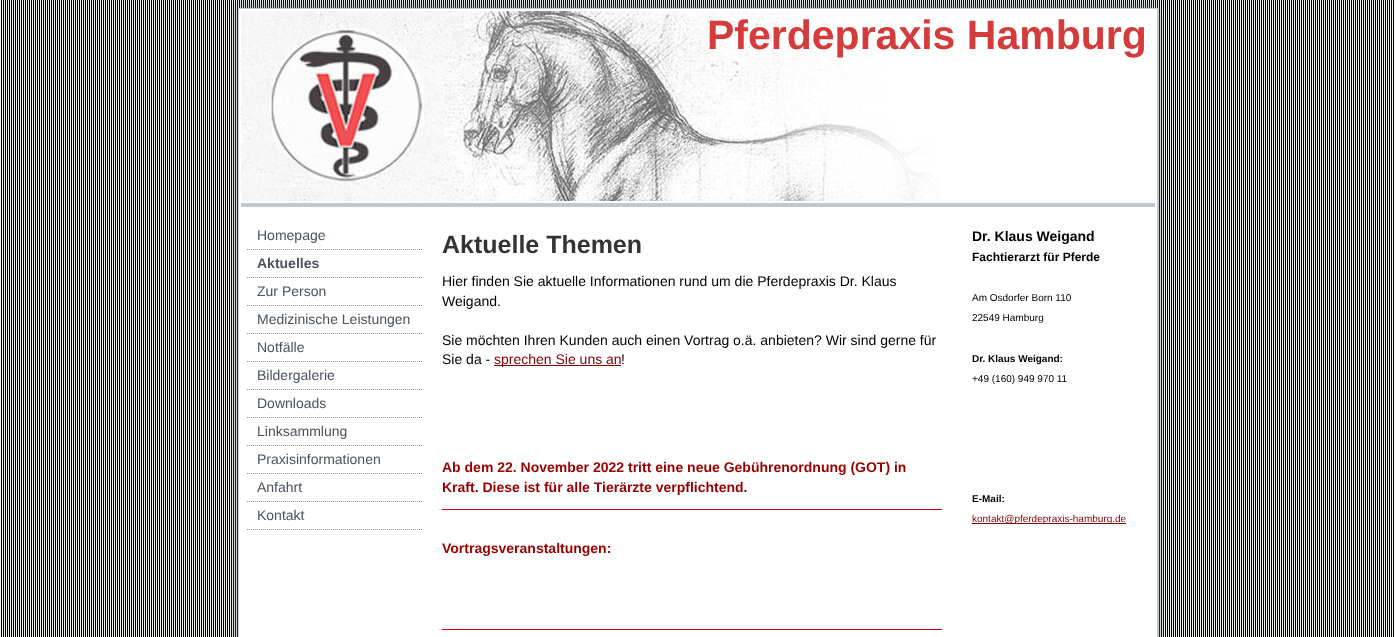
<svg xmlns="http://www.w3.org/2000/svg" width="1395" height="637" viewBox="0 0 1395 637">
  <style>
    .t1 { font: bold 41px Liberation Sans; fill: #d43c3c; }
    .t2 { font: 14px Liberation Sans; fill: #4b525c; }
    .t3 { font: bold 14px Liberation Sans; fill: #4b525c; }
    .t4 { font: bold 25px Liberation Sans; fill: #333; }
    .t5 { font: 14px Liberation Sans; fill: #000; }
    .t6 { font: 14px Liberation Sans; fill: #7f0005; }
    .t7 { font: bold 14px Liberation Sans; fill: #900; }
    .t8 { font: bold 14px Liberation Sans; fill: #000; }
    .t9 { font: bold 12px Liberation Sans; fill: #000; }
    .t10 { font: 10px Liberation Sans; fill: #000; }
    .t11 { font: bold 10px Liberation Sans; fill: #000; }
    .t12 { font: 10px Liberation Sans; fill: #7f0005; }
  </style>
  <rect width="100%" height="100%" fill="#eef1ee"/>
  <image x="1" y="0" width="1393" height="637" href="images/1.png"/>
  <image x="230" y="0" width="936" height="11" href="images/2.png"/>
  <image x="230" y="11" width="934" height="626" href="images/3.png"/>
  <rect x="241" y="203" width="914" height="4" fill="#c2c6cd"/>
  <image x="241" y="11" width="914" height="190" href="images/4.png"/>
  <text x="707" y="49" class="t1">Pferdepraxis Hamburg</text>
  <image x="247" y="249" width="175" height="1" href="images/5.png"/>
  <text x="257" y="240" class="t2">Homepage</text>
  <image x="247" y="277" width="175" height="1" href="images/5.png"/>
  <text x="257" y="268" class="t3">Aktuelles</text>
  <image x="247" y="305" width="175" height="1" href="images/5.png"/>
  <text x="257" y="296" class="t2">Zur Person</text>
  <image x="247" y="333" width="175" height="1" href="images/5.png"/>
  <text x="257" y="324" class="t2">Medizinische Leistungen</text>
  <image x="247" y="361" width="175" height="1" href="images/5.png"/>
  <text x="257" y="352" class="t2">Notfälle</text>
  <image x="247" y="389" width="175" height="1" href="images/5.png"/>
  <text x="257" y="380" class="t2">Bildergalerie</text>
  <image x="247" y="417" width="175" height="1" href="images/5.png"/>
  <text x="257" y="408" class="t2">Downloads</text>
  <image x="247" y="445" width="175" height="1" href="images/5.png"/>
  <text x="257" y="436" class="t2">Linksammlung</text>
  <image x="247" y="473" width="175" height="1" href="images/5.png"/>
  <text x="257" y="464" class="t2">Praxisinformationen</text>
  <image x="247" y="501" width="175" height="1" href="images/5.png"/>
  <text x="257" y="492" class="t2">Anfahrt</text>
  <image x="247" y="529" width="175" height="1" href="images/5.png"/>
  <text x="257" y="520" class="t2">Kontakt</text>
  <text x="442" y="253" class="t4">Aktuelle Themen</text>
  <text x="442" y="286" class="t5">Hier finden Sie aktuelle Informationen rund um die Pferdepraxis Dr. Klaus</text>
  <text x="442" y="306" class="t5">Weigand.</text>
  <text x="442" y="345" class="t5">Sie möchten Ihren Kunden auch einen Vortrag o.ä. anbieten? Wir sind gerne für</text>
  <text x="442" y="364" class="t5">Sie da -</text>
  <rect x="494" y="365" width="127" height="1" fill="#7f0005"/>
  <text x="494" y="364" class="t6">sprechen Sie uns an</text>
  <text x="621" y="364" class="t5">!</text>
  <text x="442" y="472" class="t7">Ab dem 22. November 2022 tritt eine neue Gebührenordnung (GOT) in</text>
  <text x="442" y="492" class="t7">Kraft. Diese ist für alle Tierärzte verpflichtend.</text>
  <rect x="442" y="509" width="500" height="1" fill="#cd001a"/>
  <text x="442" y="553" class="t7">Vortragsveranstaltungen:</text>
  <rect x="442" y="629" width="500" height="1" fill="#cd001a"/>
  <text x="972" y="241" class="t8">Dr. Klaus Weigand</text>
  <text x="972" y="261" class="t9">Fachtierarzt für Pferde</text>
  <text x="972" y="301" class="t10">Am Osdorfer Born 110</text>
  <text x="972" y="321" class="t10">22549 Hamburg</text>
  <text x="972" y="362" class="t11">Dr. Klaus Weigand:</text>
  <text x="972" y="382" class="t10">+49 (160) 949 970 11</text>
  <text x="972" y="502" class="t11">E-Mail:</text>
  <rect x="972" y="523" width="154" height="1" fill="#7f0005"/>
  <text x="972" y="522" class="t12">kontakt@pferdepraxis-hamburg.de</text>
</svg>
